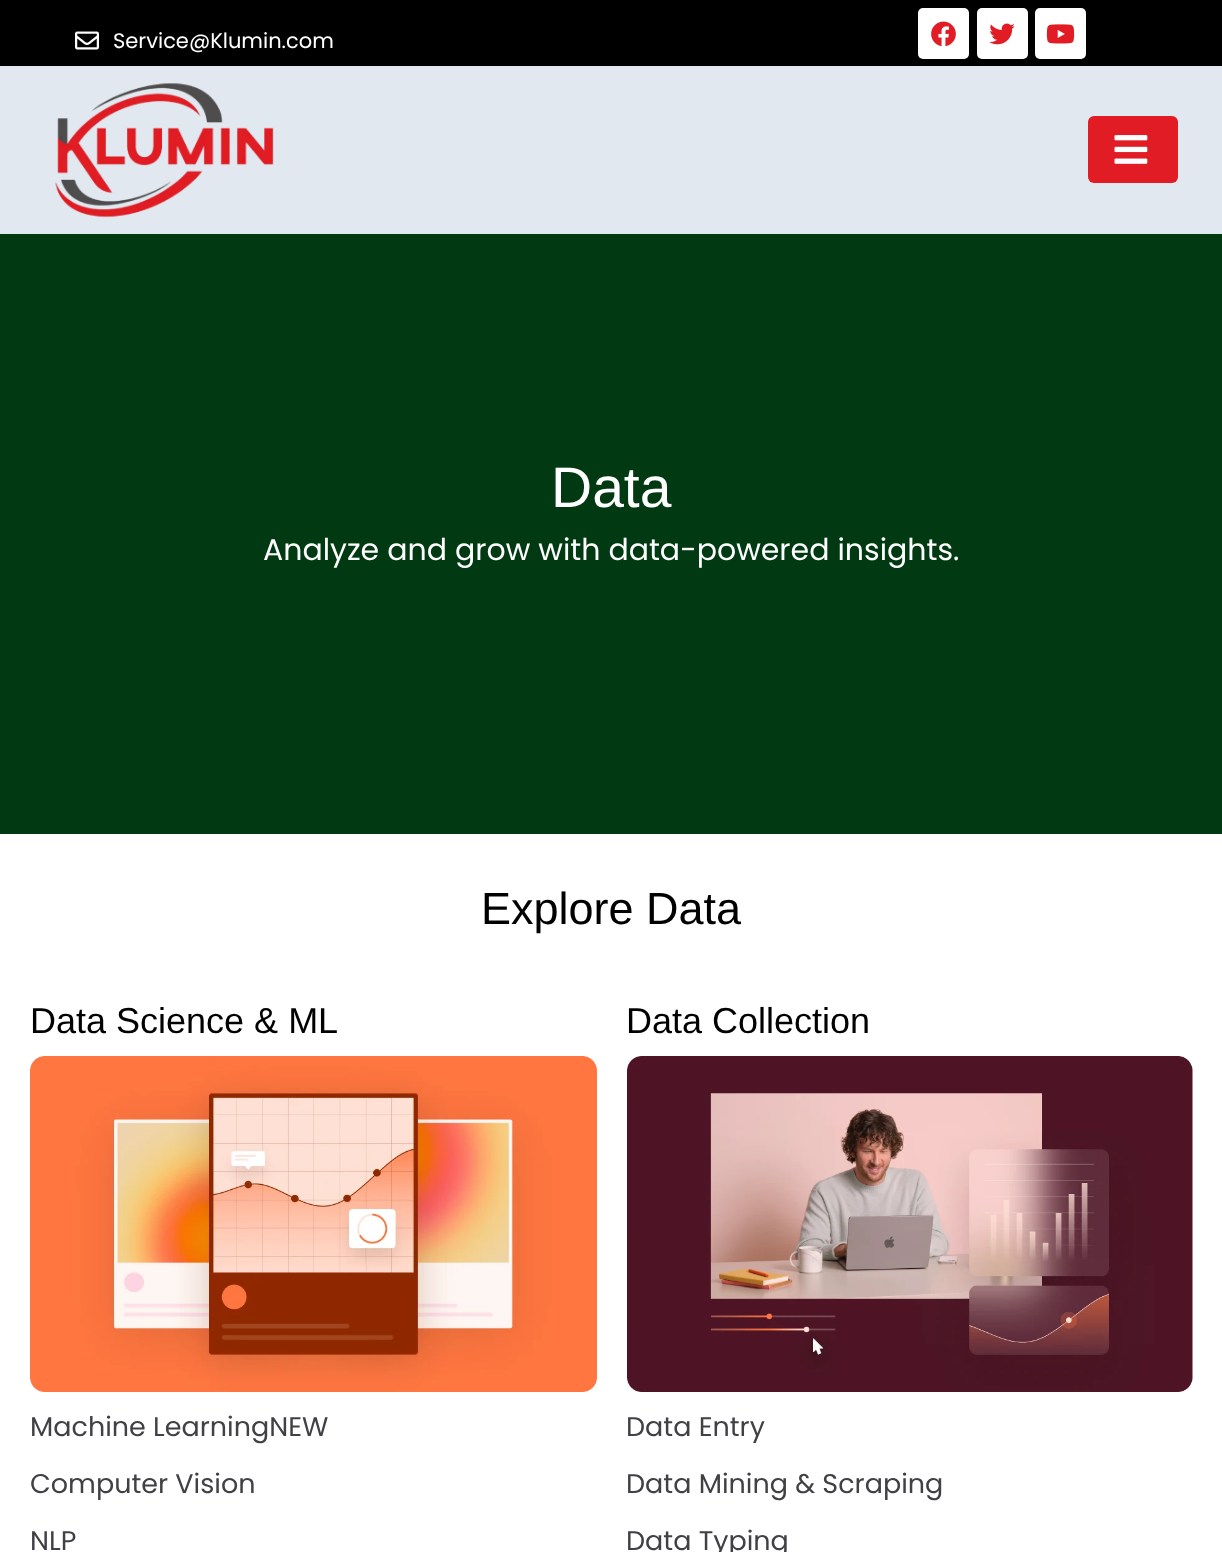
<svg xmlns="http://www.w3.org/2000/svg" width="1222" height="1552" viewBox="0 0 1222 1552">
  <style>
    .t1 { font: 21px Poppins; fill: #fff; }
    .t2 { font: 57px Liberation Sans; fill: #fff; }
    .t3 { font: 30px Poppins; fill: #fff; }
    .t4 { font: 45px Liberation Sans; fill: #000; }
    .t5 { font: 36px Liberation Sans; fill: #000; }
    .t6 { font: 27px Poppins; fill: #404145; }
  </style>
  <rect width="100%" height="100%" fill="#fff"/>
  <rect x="0" y="0" width="1222" height="66" fill="#000"/>
  <image x="75" y="31" width="24" height="19" href="images/1.png"/>
  <text x="113" y="48" class="t1">Service@Klumin.com</text>
  <rect x="918" y="8" width="51" height="51" rx="5" fill="#fff"/>
  <image x="931" y="21" width="25" height="26" href="images/2.png"/>
  <rect x="977" y="8" width="51" height="51" rx="5" fill="#fff"/>
  <image x="989" y="23" width="26" height="22" href="images/3.png"/>
  <rect x="1035" y="8" width="51" height="51" rx="5" fill="#fff"/>
  <image x="1046" y="24" width="29" height="20" href="images/4.png"/>
  <rect x="0" y="66" width="1222" height="168" fill="#e2e8f0"/>
  <image x="55" y="83" width="219" height="135" href="images/5.png"/>
  <rect x="1088" y="116" width="90" height="67" rx="6" fill="#e21c24"/>
  <image x="1114" y="135" width="34" height="29" href="images/6.png"/>
  <rect x="0" y="234" width="1222" height="600" fill="#013a12"/>
  <text x="551" y="507" class="t2">Data</text>
  <text x="263" y="560" class="t3">Analyze and grow with data-powered insights.</text>
  <text x="481" y="924" class="t4">Explore Data</text>
  <text x="30" y="1033" class="t5">Data Science &amp; ML</text>
  <image x="30" y="1056" width="567" height="336" href="images/7.png"/>
  <text x="30" y="1436" class="t6">Machine LearningNEW</text>
  <text x="30" y="1493" class="t6">Computer Vision</text>
  <text x="30" y="1550" class="t6">NLP</text>
  <text x="626" y="1033" class="t5">Data Collection</text>
  <image x="627" y="1056" width="566" height="336" href="images/8.png"/>
  <text x="626" y="1436" class="t6">Data Entry</text>
  <text x="626" y="1493" class="t6">Data Mining &amp; Scraping</text>
  <text x="626" y="1550" class="t6">Data Typing</text>
</svg>
